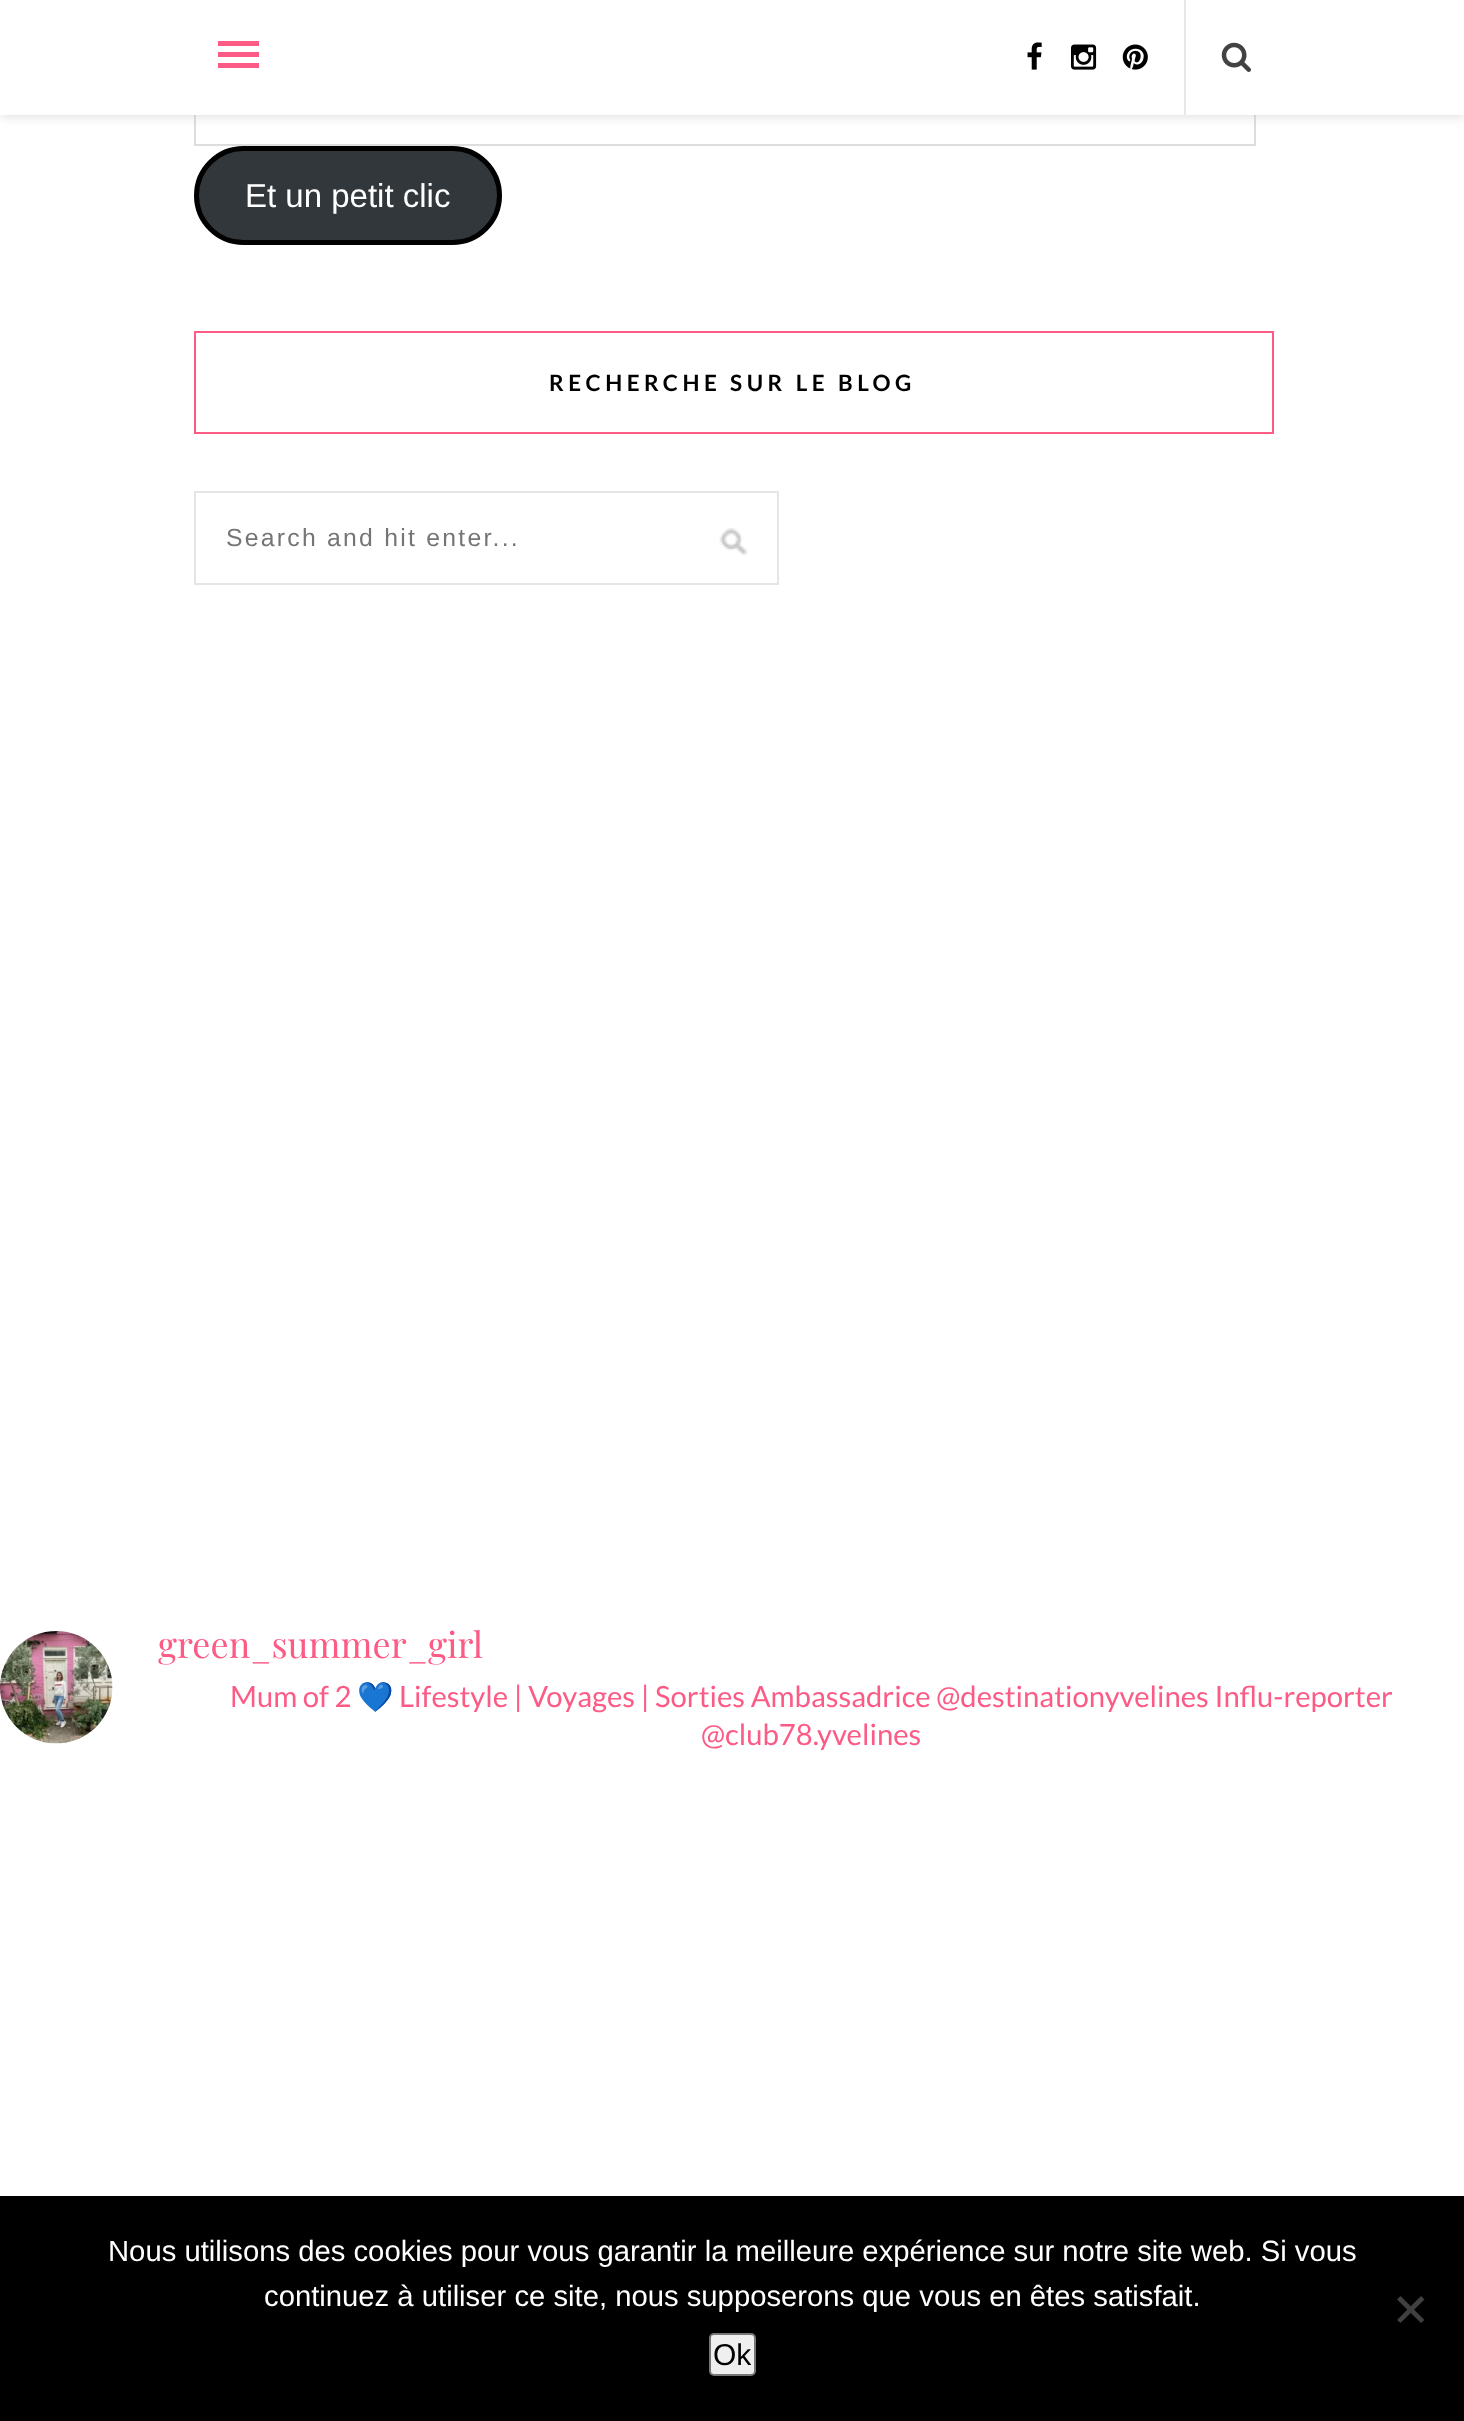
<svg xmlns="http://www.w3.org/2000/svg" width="1464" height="2421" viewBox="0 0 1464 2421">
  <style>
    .t1 { font: 33px Liberation Sans; fill: #fff; }
    .t2 { font: bold 22.5px Lato; letter-spacing: 4.5px; fill: #000; }
    .t3 { font: 24.75px Liberation Sans; letter-spacing: 2.25px; fill: #757575; }
    .t4 { font: 36px Playfair Display; fill: #fc5b86; }
    .t5 { font: 29.25px Lato; fill: #fc5b86; }
    .t6 { font: 29.25px Noto Color Emoji; fill: #fc5b86; }
    .t7 { font: 29.25px Liberation Sans; fill: #fff; }
    .t8 { font: 30px Liberation Sans; fill: #000; }
  </style>
  <rect width="100%" height="100%" fill="#fff"/>
  <rect x="195" y="69" width="1060" height="76" fill="none" stroke="#ddd" stroke-width="2"/>
  <rect x="0" y="2" width="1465" height="115" fill="#bebebe75" filter="blur(5.5px)"/>
  <rect x="0" y="0" width="1464" height="115" fill="#fff"/>
  <rect x="218" y="41" width="41" height="5" fill="#fc5b86"/>
  <rect x="218" y="52" width="41" height="5" fill="#fc5b86"/>
  <rect x="218" y="63" width="41" height="5" fill="#fc5b86"/>
  <image x="1027" y="42" width="15" height="28" href="images/1.png"/>
  <image x="1071" y="44" width="26" height="26" href="images/2.png"/>
  <image x="1122" y="44" width="26" height="26" href="images/3.png"/>
  <rect x="1184" y="0" width="2" height="115" fill="#e8e8e8"/>
  <image x="1221" y="42" width="30" height="30" href="images/4.png"/>
  <rect x="196.5" y="148.5" width="303" height="94" rx="47" fill="#32373c" stroke="#000" stroke-width="5"/>
  <text x="245" y="207" class="t1">Et un petit clic</text>
  <rect x="195" y="332" width="1078" height="101" fill="none" stroke="#fc5b86" stroke-width="2"/>
  <text x="549" y="391" class="t2">RECHERCHE SUR LE BLOG</text>
  <image x="719" y="528" width="29" height="28" href="images/5.png"/>
  <rect x="195" y="492" width="583" height="92" fill="none" stroke="#e5e5e5" stroke-width="2"/>
  <text x="226" y="546" class="t3">Search and hit enter...</text>
  <image x="0" y="1631" width="113" height="113" href="images/6.png"/>
  <text x="158" y="1658" class="t4">green_summer_girl</text>
  <text x="230" y="1707" class="t5">Mum of 2</text>
  <text x="357" y="1707" class="t6">💙</text>
  <text x="399" y="1707" class="t5">Lifestyle | Voyages | Sorties Ambassadrice @destinationyvelines Influ-reporter</text>
  <text x="701" y="1745" class="t5">@club78.yvelines</text>
  <rect x="0" y="2196" width="1464" height="225" fill="#000"/>
  <text x="108" y="2261" class="t7">Nous utilisons des cookies pour vous garantir la meilleure expérience sur notre site web. Si vous</text>
  <text x="264" y="2306" class="t7">continuez à utiliser ce site, nous supposerons que vous en êtes satisfait.</text>
  <path d="M1421 2296L1424.5 2299.5L1400.5 2323L1397 2320Z" fill="#404040"/>
  <path d="M1397 2299.5L1400.5 2296L1424.5 2320L1421 2323Z" fill="#404040"/>
  <rect x="710" y="2334" width="45" height="41" rx="4" fill="#efefef" stroke="#767676" stroke-width="2"/>
  <text x="713" y="2365" class="t8">Ok</text>
</svg>
